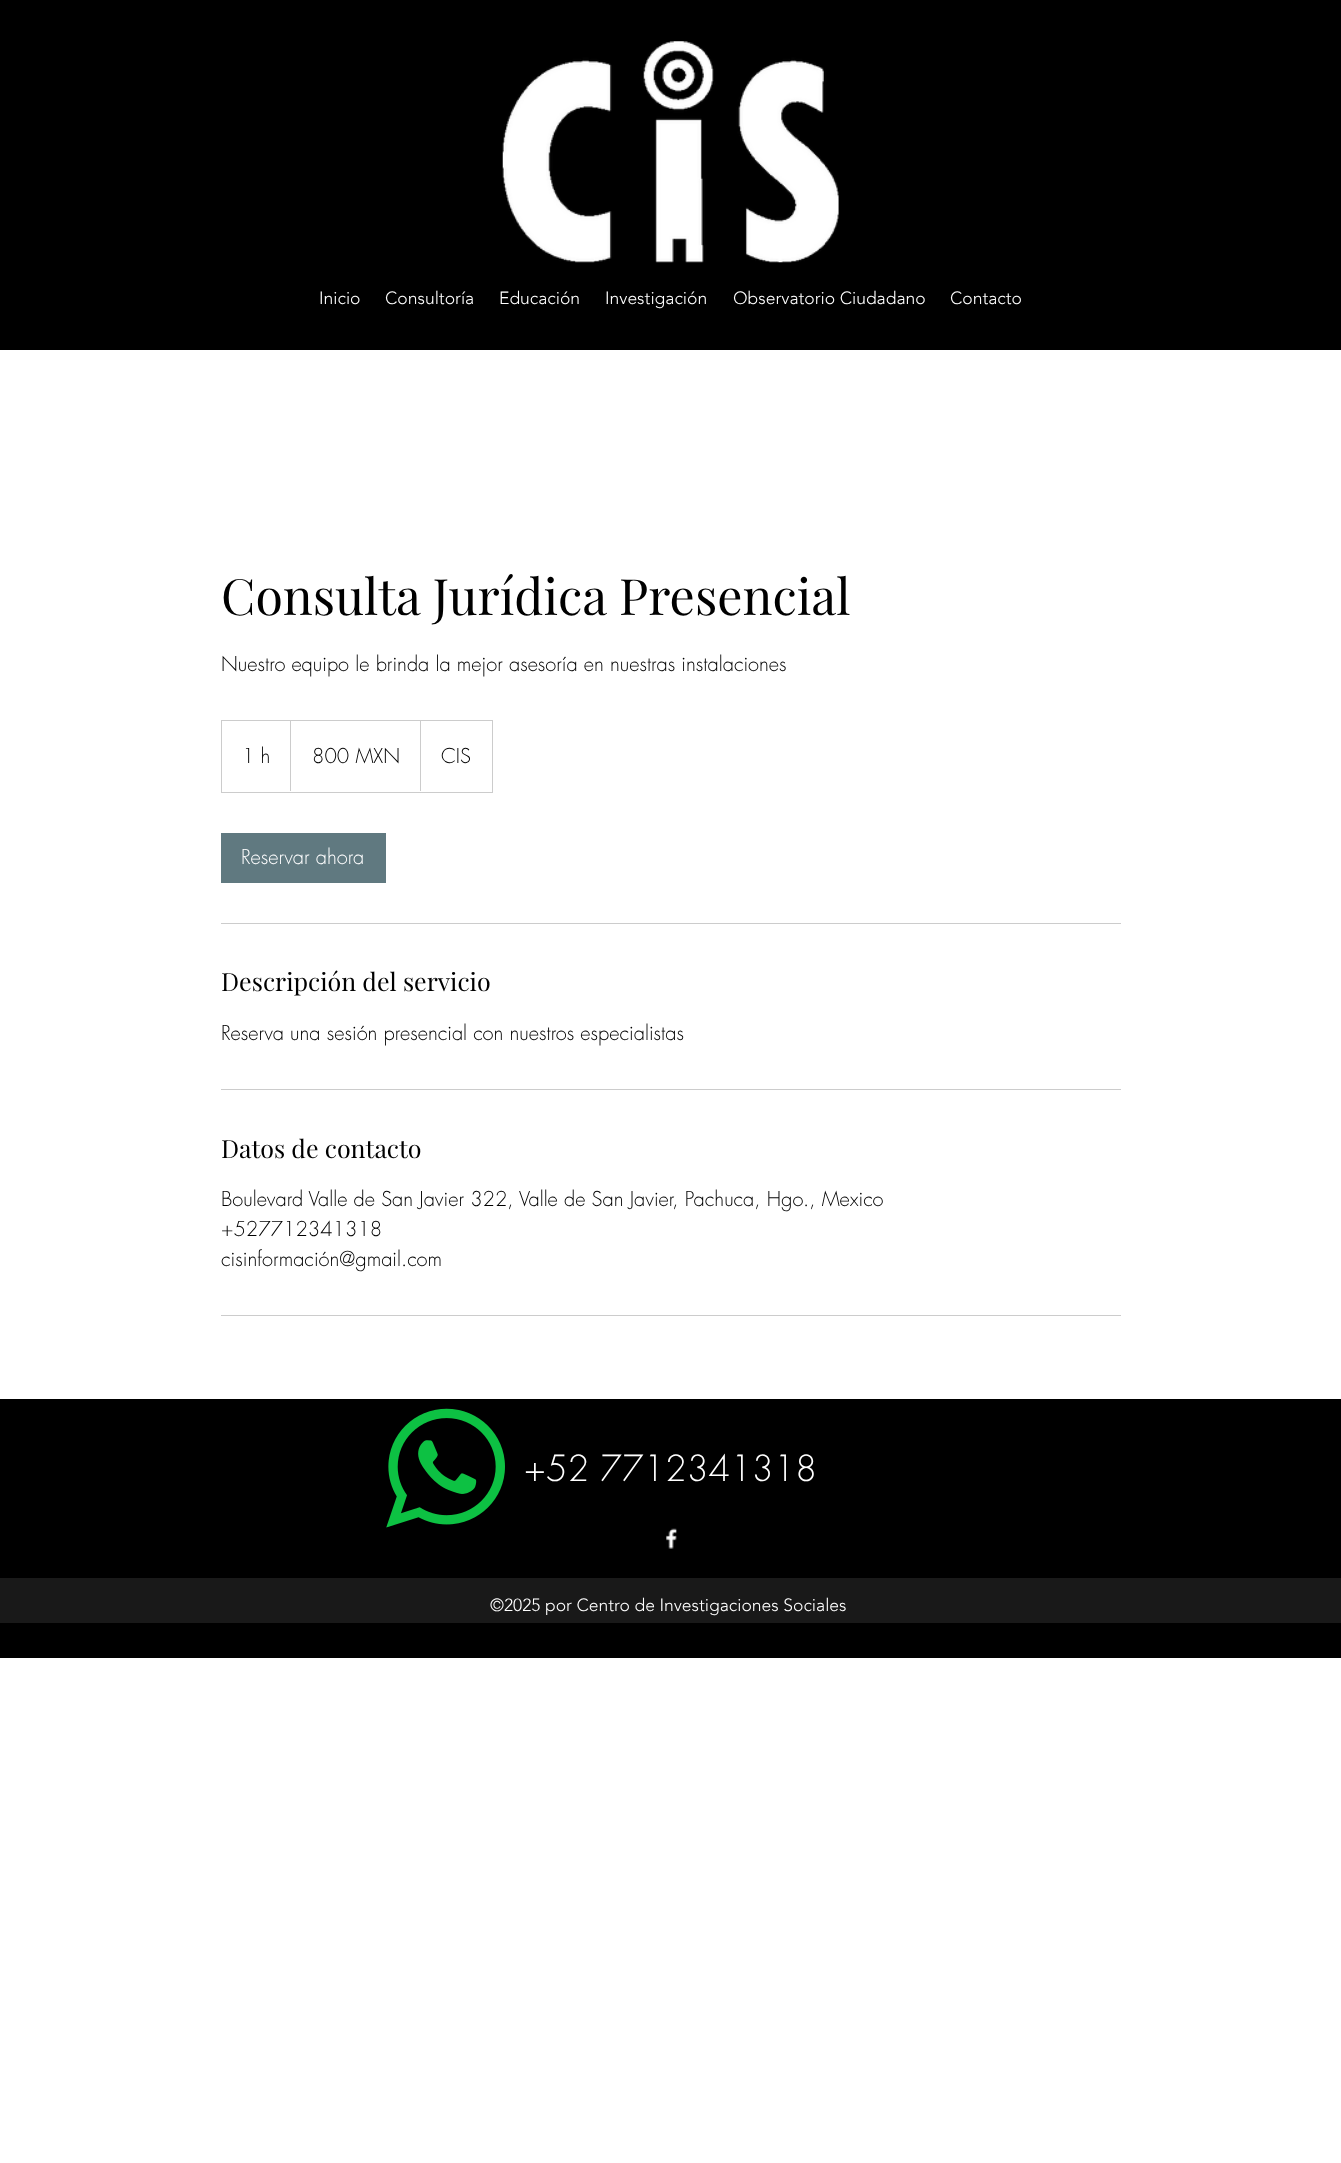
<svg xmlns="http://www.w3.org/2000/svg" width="1341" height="2163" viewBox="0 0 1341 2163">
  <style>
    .t1 { font: 300 17.5px 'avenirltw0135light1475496'; fill: #fff; }
    .t2 { font: 50px Playfair Display; fill: #000; }
    .t3 { font: 300 20px futura; fill: #000; }
    .t4 { font: 300 20px futura; fill: #fff; }
    .t5 { font: 25px Playfair Display; fill: #000; }
    .t6 { font: 300 35px futura; fill: #fff; }
  </style>
  <rect width="100%" height="100%" fill="#fff"/>
  <rect x="0" y="0" width="1341" height="350" fill="#000"/>
  <image x="502" y="41" width="337" height="222" href="images/1.png"/>
  <text x="319" y="304" class="t1">Inicio</text>
  <text x="385" y="304" class="t1">Consultoría</text>
  <text x="499" y="304" class="t1">Educación</text>
  <text x="605" y="304" class="t1">Investigación</text>
  <text x="733" y="304" class="t1">Observatorio Ciudadano</text>
  <text x="950" y="304" class="t1">Contacto</text>
  <text x="221" y="615" class="t2">Consulta Jurídica Presencial</text>
  <text x="221" y="671" class="t3">Nuestro equipo le brinda la mejor asesoría en nuestras instalaciones</text>
  <rect x="221.5" y="720.5" width="271" height="72" fill="none" stroke="#ccc"/>
  <text x="242" y="763" class="t3">1 h</text>
  <path d="M290 791V720L291 721V791Z" fill="#ccc"/>
  <text x="312" y="763" class="t3">800 MXN</text>
  <path d="M420 791V720L421 721V791Z" fill="#ccc"/>
  <text x="441" y="763" class="t3">CIS</text>
  <rect x="221" y="833" width="165" height="50" fill="#607980"/>
  <text x="241" y="864" class="t4">Reservar ahora</text>
  <rect x="221" y="923" width="900" height="1" fill="#ccc"/>
  <text x="221" y="991" class="t5">Descripción del servicio</text>
  <text x="221" y="1040" class="t3">Reserva una sesión presencial con nuestros especialistas</text>
  <rect x="221" y="1089" width="900" height="1" fill="#ccc"/>
  <text x="221" y="1158" class="t5">Datos de contacto</text>
  <text x="221" y="1206" class="t3">Boulevard Valle de San Javier 322, Valle de San Javier, Pachuca, Hgo., Mexico</text>
  <text x="221" y="1236" class="t3">+527712341318</text>
  <text x="221" y="1266" class="t3">cisinformación@gmail.com</text>
  <rect x="221" y="1315" width="900" height="1" fill="#ccc"/>
  <rect x="0" y="1399" width="1341" height="259" fill="#000"/>
  <image x="386" y="1408" width="119" height="120" href="images/2.png"/>
  <text x="524" y="1481" class="t6">+52 7712341318</text>
  <image x="666" y="1528" width="11" height="21" href="images/3.png"/>
  <rect x="0" y="1578" width="1341" height="45" fill="#191919"/>
  <text x="490" y="1611" class="t1">©2025 por Centro de Investigaciones Sociales</text>
</svg>
